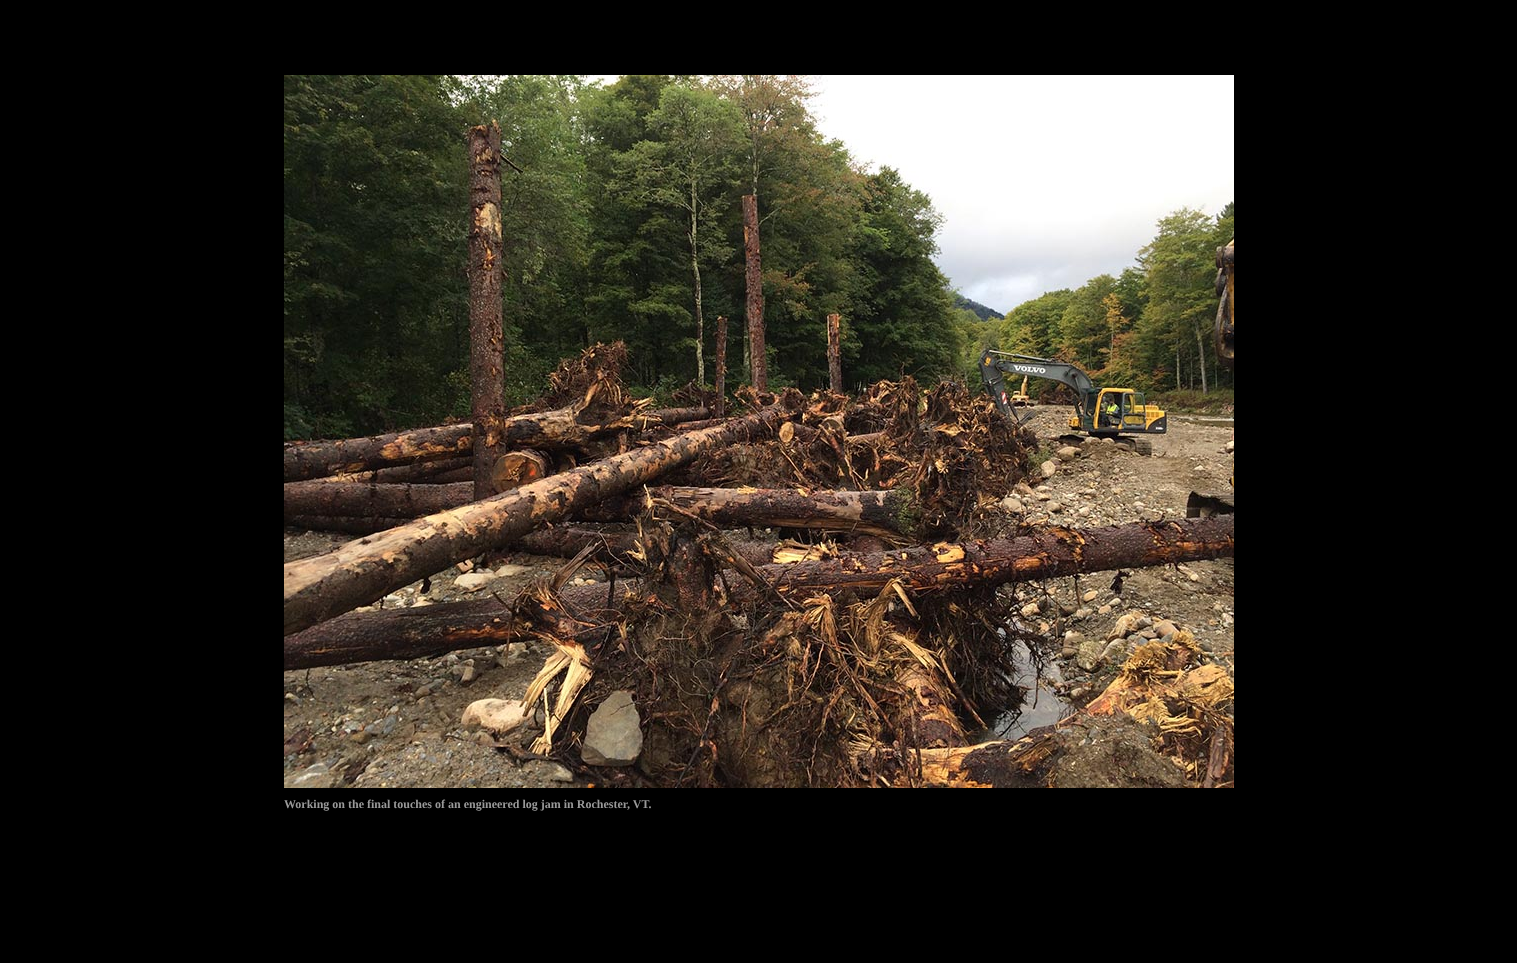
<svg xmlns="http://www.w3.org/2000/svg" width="1517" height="963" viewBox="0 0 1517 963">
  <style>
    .t1 { font: bold 12px Liberation Serif; fill: #999; }
  </style>
  <rect width="100%" height="100%" fill="#000"/>
  <image x="284" y="75" width="950" height="713" href="images/1.png"/>
  <text x="284" y="808" class="t1">Working on the final touches of an engineered log jam in Rochester, VT.</text>
</svg>
